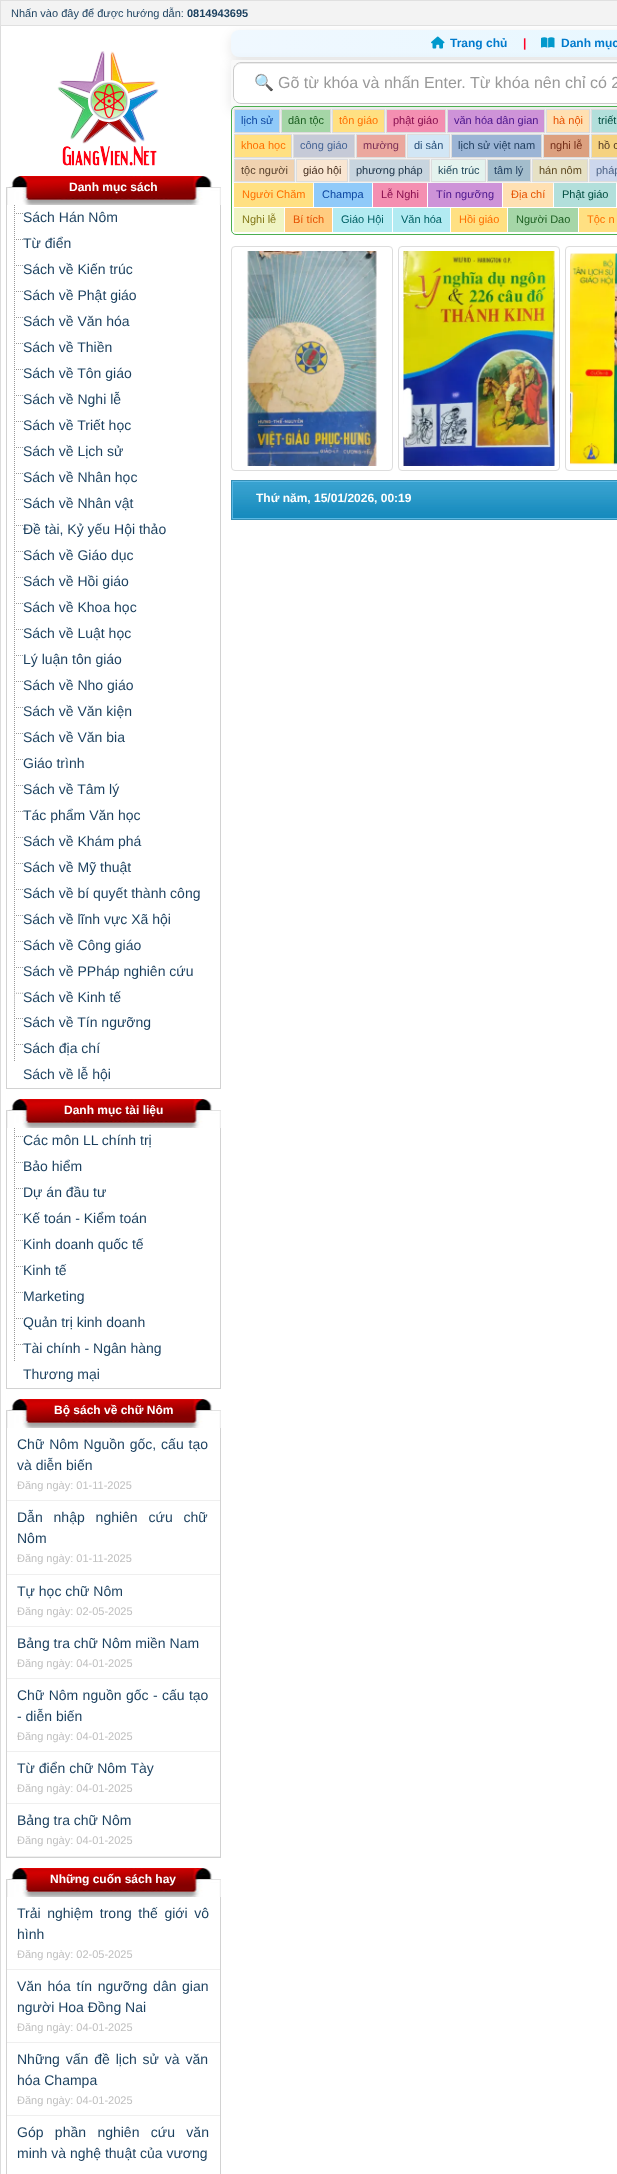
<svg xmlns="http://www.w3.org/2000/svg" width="617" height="2174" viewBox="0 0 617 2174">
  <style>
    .t1 { font: 11px Liberation Sans; fill: #1a3f5e; }
    .t2 { font: bold 11px Liberation Sans; fill: #1a3f5e; }
    .t3 { font: bold 12px Liberation Sans; fill: #fff; }
    .t4 { font: 14px Liberation Sans; fill: #1a3f5e; }
    .t5 { font: 11px Liberation Sans; fill: #c0c0c0; }
    .t6 { font: bold 12px Liberation Sans; fill: #007acc; }
    .t7 { font: bold 12px Liberation Sans; fill: #ff0026; }
    .t8 { font: 16px Noto Color Emoji; fill: #999; }
    .t9 { font: 16px Liberation Sans; fill: #999; }
    .t10 { font: 11px Liberation Sans; fill: #0d47a1; }
    .t11 { font: 11px Liberation Sans; fill: #1b5e20; }
    .t12 { font: 11px Liberation Sans; fill: #ff6f00; }
    .t13 { font: 11px Liberation Sans; fill: #880e4f; }
    .t14 { font: 11px Liberation Sans; fill: #4a148c; }
    .t15 { font: 11px Liberation Sans; fill: #e65100; }
    .t16 { font: 11px Liberation Sans; fill: #004d40; }
    .t17 { font: 11px Liberation Sans; fill: #436294; }
    .t18 { font: 11px Liberation Sans; fill: #7b2e56; }
    .t19 { font: 11px Liberation Sans; fill: #274f7a; }
    .t20 { font: 11px Liberation Sans; fill: #213f60; }
    .t21 { font: 11px Liberation Sans; fill: #732d18; }
    .t22 { font: 11px Liberation Sans; fill: #503824; }
    .t23 { font: 11px Liberation Sans; fill: #58412c; }
    .t24 { font: 11px Liberation Sans; fill: #442c1c; }
    .t25 { font: 11px Liberation Sans; fill: #1a3146; }
    .t26 { font: 11px Liberation Sans; fill: #22495c; }
    .t27 { font: 11px Liberation Sans; fill: #5d4920; }
    .t28 { font: 11px Liberation Sans; fill: #4e6387; }
    .t29 { font: 11px Liberation Sans; fill: #827717; }
    .t30 { font: 11px Liberation Sans; fill: #006064; }
  </style>
  <defs>
    <linearGradient id="g1" gradientUnits="userSpaceOnUse" x1="231" y1="44" x2="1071" y2="43"><stop offset="0" stop-color="#f0f8ff"/><stop offset="1" stop-color="#e0f7ff"/></linearGradient>
    <clipPath id="clip1"><rect x="254" y="73" width="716" height="19"/></clipPath>
  </defs>
  <rect width="100%" height="100%" fill="#fff"/>
  <rect x="0" y="26" width="1" height="2148" fill="#dcdcdc"/>
  <rect x="231" y="34" width="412" height="27" rx="8" fill="#0000001a" filter="blur(6px)"/>
  <rect x="0.5" y="0.5" width="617" height="25" fill="#f3f3f3" stroke="#e0e0e0"/>
  <text x="11" y="17" class="t1">Nhấn vào đây để được hướng dẫn:</text>
  <text x="187" y="17" class="t2">0814943695</text>
  <image x="57" y="51" width="102" height="115" href="images/1.png"/>
  <image x="6" y="176" width="215" height="29" href="images/2.png"/>
  <text x="69" y="191" class="t3">Danh mục sách</text>
  <rect x="220" y="205" width="1" height="884" fill="#d2d2d2"/>
  <rect x="6" y="1088" width="215" height="1" fill="#d2d2d2"/>
  <rect x="6" y="205" width="1" height="884" fill="#d2d2d2"/>
  <image x="14" y="205" width="9" height="25" href="images/3.png"/>
  <text x="23" y="222" class="t4">Sách Hán Nôm</text>
  <image x="14" y="231" width="9" height="25" href="images/3.png"/>
  <text x="23" y="248" class="t4">Từ điển</text>
  <image x="14" y="257" width="9" height="25" href="images/3.png"/>
  <text x="23" y="274" class="t4">Sách về Kiến trúc</text>
  <image x="14" y="283" width="9" height="25" href="images/3.png"/>
  <text x="23" y="300" class="t4">Sách về Phật giáo</text>
  <image x="14" y="309" width="9" height="25" href="images/3.png"/>
  <text x="23" y="326" class="t4">Sách về Văn hóa</text>
  <image x="14" y="335" width="9" height="25" href="images/3.png"/>
  <text x="23" y="352" class="t4">Sách về Thiền</text>
  <image x="14" y="361" width="9" height="25" href="images/3.png"/>
  <text x="23" y="378" class="t4">Sách về Tôn giáo</text>
  <image x="14" y="387" width="9" height="25" href="images/3.png"/>
  <text x="23" y="404" class="t4">Sách về Nghi lễ</text>
  <image x="14" y="413" width="9" height="25" href="images/3.png"/>
  <text x="23" y="430" class="t4">Sách về Triết học</text>
  <image x="14" y="439" width="9" height="25" href="images/3.png"/>
  <text x="23" y="456" class="t4">Sách về Lịch sử</text>
  <image x="14" y="465" width="9" height="25" href="images/3.png"/>
  <text x="23" y="482" class="t4">Sách về Nhân học</text>
  <image x="14" y="491" width="9" height="25" href="images/3.png"/>
  <text x="23" y="508" class="t4">Sách về Nhân vật</text>
  <image x="14" y="517" width="9" height="25" href="images/3.png"/>
  <text x="23" y="534" class="t4">Đề tài, Kỷ yếu Hội thảo</text>
  <image x="14" y="543" width="9" height="25" href="images/3.png"/>
  <text x="23" y="560" class="t4">Sách về Giáo dục</text>
  <image x="14" y="569" width="9" height="25" href="images/3.png"/>
  <text x="23" y="586" class="t4">Sách về Hồi giáo</text>
  <image x="14" y="595" width="9" height="25" href="images/3.png"/>
  <text x="23" y="612" class="t4">Sách về Khoa học</text>
  <image x="14" y="621" width="9" height="25" href="images/3.png"/>
  <text x="23" y="638" class="t4">Sách về Luật học</text>
  <image x="14" y="647" width="9" height="25" href="images/3.png"/>
  <text x="23" y="664" class="t4">Lý luận tôn giáo</text>
  <image x="14" y="673" width="9" height="25" href="images/3.png"/>
  <text x="23" y="690" class="t4">Sách về Nho giáo</text>
  <image x="14" y="699" width="9" height="25" href="images/3.png"/>
  <text x="23" y="716" class="t4">Sách về Văn kiện</text>
  <image x="14" y="725" width="9" height="25" href="images/3.png"/>
  <text x="23" y="742" class="t4">Sách về Văn bia</text>
  <image x="14" y="751" width="9" height="25" href="images/3.png"/>
  <text x="23" y="768" class="t4">Giáo trình</text>
  <image x="14" y="777" width="9" height="25" href="images/3.png"/>
  <text x="23" y="794" class="t4">Sách về Tâm lý</text>
  <image x="14" y="803" width="9" height="25" href="images/3.png"/>
  <text x="23" y="820" class="t4">Tác phẩm Văn học</text>
  <image x="14" y="829" width="9" height="25" href="images/3.png"/>
  <text x="23" y="846" class="t4">Sách về Khám phá</text>
  <image x="14" y="855" width="9" height="25" href="images/3.png"/>
  <text x="23" y="872" class="t4">Sách về Mỹ thuật</text>
  <image x="14" y="881" width="9" height="25" href="images/3.png"/>
  <text x="23" y="898" class="t4">Sách về bí quyết thành công</text>
  <image x="14" y="907" width="9" height="25" href="images/3.png"/>
  <text x="23" y="924" class="t4">Sách về lĩnh vực Xã hội</text>
  <image x="14" y="933" width="9" height="25" href="images/3.png"/>
  <text x="23" y="950" class="t4">Sách về Công giáo</text>
  <image x="14" y="959" width="9" height="25" href="images/3.png"/>
  <text x="23" y="976" class="t4">Sách về PPháp nghiên cứu</text>
  <image x="14" y="985" width="9" height="25" href="images/4.png"/>
  <text x="23" y="1002" class="t4">Sách về Kinh tế</text>
  <image x="14" y="1010" width="9" height="25" href="images/3.png"/>
  <text x="23" y="1027" class="t4">Sách về Tín ngưỡng</text>
  <image x="14" y="1036" width="9" height="25" href="images/3.png"/>
  <text x="23" y="1053" class="t4">Sách địa chí</text>
  <text x="23" y="1079" class="t4">Sách về lễ hội</text>
  <image x="6" y="1099" width="215" height="29" href="images/2.png"/>
  <text x="64" y="1114" class="t3">Danh mục tài liệu</text>
  <rect x="220" y="1128" width="1" height="261" fill="#d2d2d2"/>
  <rect x="6" y="1388" width="215" height="1" fill="#d2d2d2"/>
  <rect x="6" y="1128" width="1" height="261" fill="#d2d2d2"/>
  <image x="14" y="1128" width="9" height="25" href="images/3.png"/>
  <text x="23" y="1145" class="t4">Các môn LL chính trị</text>
  <image x="14" y="1154" width="9" height="25" href="images/3.png"/>
  <text x="23" y="1171" class="t4">Bảo hiểm</text>
  <image x="14" y="1180" width="9" height="25" href="images/3.png"/>
  <text x="23" y="1197" class="t4">Dự án đầu tư</text>
  <image x="14" y="1206" width="9" height="25" href="images/3.png"/>
  <text x="23" y="1223" class="t4">Kế toán - Kiểm toán</text>
  <image x="14" y="1232" width="9" height="25" href="images/3.png"/>
  <text x="23" y="1249" class="t4">Kinh doanh quốc tế</text>
  <image x="14" y="1258" width="9" height="25" href="images/3.png"/>
  <text x="23" y="1275" class="t4">Kinh tế</text>
  <image x="14" y="1284" width="9" height="25" href="images/3.png"/>
  <text x="23" y="1301" class="t4">Marketing</text>
  <image x="14" y="1310" width="9" height="25" href="images/3.png"/>
  <text x="23" y="1327" class="t4">Quản trị kinh doanh</text>
  <image x="14" y="1336" width="9" height="25" href="images/3.png"/>
  <text x="23" y="1353" class="t4">Tài chính - Ngân hàng</text>
  <text x="23" y="1379" class="t4">Thương mại</text>
  <image x="6" y="1399" width="215" height="29" href="images/2.png"/>
  <text x="54" y="1414" class="t3">Bộ sách về chữ Nôm</text>
  <rect x="220" y="1428" width="1" height="430" fill="#d2d2d2"/>
  <rect x="6" y="1857" width="215" height="1" fill="#d2d2d2"/>
  <rect x="6" y="1428" width="1" height="430" fill="#d2d2d2"/>
  <rect x="7" y="1500" width="213" height="1" fill="#efefef"/>
  <text x="17" y="1449" word-spacing="1" class="t4">Chữ Nôm Nguồn gốc, cấu tạo</text>
  <text x="17" y="1470" class="t4">và diễn biến</text>
  <text x="17" y="1489" class="t5">Đăng ngày: 01-11-2025</text>
  <rect x="7" y="1574" width="213" height="1" fill="#efefef"/>
  <text x="17" y="1522" word-spacing="7" class="t4">Dẫn nhập nghiên cứu chữ</text>
  <text x="17" y="1543" class="t4">Nôm</text>
  <text x="17" y="1562" class="t5">Đăng ngày: 01-11-2025</text>
  <rect x="7" y="1626" width="213" height="1" fill="#efefef"/>
  <text x="17" y="1596" class="t4">Tự học chữ Nôm</text>
  <text x="17" y="1615" class="t5">Đăng ngày: 02-05-2025</text>
  <rect x="7" y="1678" width="213" height="1" fill="#efefef"/>
  <text x="17" y="1648" class="t4">Bảng tra chữ Nôm miền Nam</text>
  <text x="17" y="1667" class="t5">Đăng ngày: 04-01-2025</text>
  <rect x="7" y="1751" width="213" height="1" fill="#efefef"/>
  <text x="17" y="1700" word-spacing="0.5" class="t4">Chữ Nôm nguồn gốc - cấu tạo</text>
  <text x="17" y="1721" class="t4">- diễn biến</text>
  <text x="17" y="1740" class="t5">Đăng ngày: 04-01-2025</text>
  <rect x="7" y="1803" width="213" height="1" fill="#efefef"/>
  <text x="17" y="1773" class="t4">Từ điển chữ Nôm Tày</text>
  <text x="17" y="1792" class="t5">Đăng ngày: 04-01-2025</text>
  <rect x="7" y="1856" width="213" height="1" fill="#efefef"/>
  <text x="17" y="1825" class="t4">Bảng tra chữ Nôm</text>
  <text x="17" y="1844" class="t5">Đăng ngày: 04-01-2025</text>
  <image x="6" y="1868" width="215" height="29" href="images/2.png"/>
  <text x="50" y="1883" class="t3">Những cuốn sách hay</text>
  <rect x="220" y="1897" width="1" height="277" fill="#d2d2d2"/>
  <rect x="6" y="1897" width="1" height="277" fill="#d2d2d2"/>
  <rect x="7" y="1969" width="213" height="1" fill="#efefef"/>
  <text x="17" y="1918" word-spacing="2.75" class="t4">Trải nghiệm trong thế giới vô</text>
  <text x="17" y="1939" class="t4">hình</text>
  <text x="17" y="1958" class="t5">Đăng ngày: 02-05-2025</text>
  <rect x="7" y="2042" width="213" height="1" fill="#efefef"/>
  <text x="17" y="1991" word-spacing="1.75" class="t4">Văn hóa tín ngưỡng dân gian</text>
  <text x="17" y="2012" class="t4">người Hoa Đồng Nai</text>
  <text x="17" y="2031" class="t5">Đăng ngày: 04-01-2025</text>
  <rect x="7" y="2115" width="213" height="1" fill="#efefef"/>
  <text x="17" y="2064" word-spacing="2" class="t4">Những vấn đề lịch sử và văn</text>
  <text x="17" y="2085" class="t4">hóa Champa</text>
  <text x="17" y="2104" class="t5">Đăng ngày: 04-01-2025</text>
  <text x="17" y="2137" word-spacing="7.5" class="t4">Góp phần nghiên cứu văn</text>
  <text x="17" y="2158" class="t4">minh và nghệ thuật của vương</text>
  <rect x="231" y="30" width="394" height="27" rx="8" fill="url(#g1)"/>
  <rect x="231" y="64" width="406" height="46" rx="2" fill="#0000001a" filter="blur(6px)"/>
  <image x="431" y="36" width="14" height="13" href="images/5.png"/>
  <text x="450" y="47" class="t6">Trang chủ</text>
  <text x="523" y="47" class="t7">|</text>
  <image x="541" y="37" width="14" height="11" href="images/6.png"/>
  <text x="561" y="47" class="t6">Danh mục</text>
  <rect x="231" y="60" width="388" height="46" rx="2" fill="#f9f9f9"/>
  <path d="M241 62H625V104H241C236.5 104 233 100.5 233 96V70C233 65.5 236.5 62 241 62Z" fill="#fff"/>
  <path d="M241 64H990V63H241C237 63 234 66 234 70C235 67 237 64 241 64Z" fill="#ececec"/>
  <path d="M241 62.5H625.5V103.5H241C237 103.5 233.5 100 233.5 96V70C233.5 66 237 62.5 241 62.5Z" fill="none" stroke="#ccc"/>
  <g clip-path="url(#clip1)">
    <text x="254" y="88" class="t8">🔍</text>
  </g>
  <text x="278" y="88" class="t9">Gõ từ khóa và nhấn Enter. Từ khóa nên chỉ có 2</text>
  <rect x="231.5" y="106.5" width="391" height="128" rx="4.5" fill="none" stroke="#4caf50"/>
  <rect x="234" y="110" width="46" height="24" fill="#00000014" filter="blur(1.5px)"/>
  <rect x="234.5" y="109.5" width="45" height="23" fill="#90caf9" stroke="#ddd"/>
  <text x="241" y="124" class="t10">lịch sử</text>
  <rect x="281" y="110" width="50" height="24" fill="#00000014" filter="blur(1.5px)"/>
  <rect x="281.5" y="109.5" width="49" height="23" fill="#a5d6a7" stroke="#ddd"/>
  <text x="288" y="124" class="t11">dân tộc</text>
  <rect x="332" y="110" width="53" height="24" fill="#00000014" filter="blur(1.5px)"/>
  <rect x="332.5" y="109.5" width="52" height="23" fill="#ffe082" stroke="#ddd"/>
  <text x="339" y="124" class="t12">tôn giáo</text>
  <rect x="386" y="110" width="60" height="24" fill="#00000014" filter="blur(1.5px)"/>
  <rect x="386.5" y="109.5" width="59" height="23" fill="#f48fb1" stroke="#ddd"/>
  <text x="393" y="124" class="t13">phật giáo</text>
  <rect x="447" y="110" width="98" height="24" fill="#00000014" filter="blur(1.5px)"/>
  <rect x="447.5" y="109.5" width="97" height="23" fill="#ce93d8" stroke="#ddd"/>
  <text x="454" y="124" class="t14">văn hóa dân gian</text>
  <rect x="546" y="110" width="44" height="24" fill="#00000014" filter="blur(1.5px)"/>
  <rect x="546.5" y="109.5" width="43" height="23" fill="#ffe0b2" stroke="#ddd"/>
  <text x="553" y="124" class="t15">hà nội</text>
  <rect x="591" y="110" width="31" height="24" fill="#00000014" filter="blur(1.5px)"/>
  <rect x="591.5" y="109.5" width="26" height="23" fill="#b2dfdb" stroke="#ddd"/>
  <text x="598" y="124" class="t16">triết</text>
  <rect x="234" y="135" width="58" height="24" fill="#00000014" filter="blur(1.5px)"/>
  <rect x="234.5" y="134.5" width="57" height="23" fill="#ffe082" stroke="#ddd"/>
  <text x="241" y="149" class="t12">khoa học</text>
  <rect x="293" y="135" width="62" height="24" fill="#00000014" filter="blur(1.5px)"/>
  <rect x="293.5" y="134.5" width="61" height="23" fill="#c6cad7" stroke="#ddd"/>
  <text x="300" y="149" class="t17">công giáo</text>
  <rect x="356" y="135" width="50" height="24" fill="#00000014" filter="blur(1.5px)"/>
  <rect x="356.5" y="134.5" width="49" height="23" fill="#eba89e" stroke="#ddd"/>
  <text x="363" y="149" class="t18">mường</text>
  <rect x="407" y="135" width="43" height="24" fill="#00000014" filter="blur(1.5px)"/>
  <rect x="407.5" y="134.5" width="42" height="23" fill="#d2e6f5" stroke="#ddd"/>
  <text x="414" y="149" class="t19">di sản</text>
  <rect x="451" y="135" width="91" height="24" fill="#00000014" filter="blur(1.5px)"/>
  <rect x="451.5" y="134.5" width="90" height="23" fill="#9bb4d5" stroke="#ddd"/>
  <text x="458" y="149" class="t20">lịch sử việt nam</text>
  <rect x="543" y="135" width="47" height="24" fill="#00000014" filter="blur(1.5px)"/>
  <rect x="543.5" y="134.5" width="46" height="23" fill="#dca07f" stroke="#ddd"/>
  <text x="550" y="149" class="t21">nghi lễ</text>
  <rect x="591" y="135" width="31" height="24" fill="#00000014" filter="blur(1.5px)"/>
  <rect x="591.5" y="134.5" width="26" height="23" fill="#f5d281" stroke="#ddd"/>
  <text x="598" y="149" class="t22">hồ c</text>
  <rect x="234" y="160" width="61" height="23" fill="#00000014" filter="blur(1.5px)"/>
  <rect x="234.5" y="159.5" width="60" height="22" fill="#f0d2b0" stroke="#ddd"/>
  <text x="241" y="174" class="t23">tộc người</text>
  <rect x="296" y="160" width="52" height="23" fill="#00000014" filter="blur(1.5px)"/>
  <rect x="296.5" y="159.5" width="51" height="22" fill="#f9e6d2" stroke="#ddd"/>
  <text x="303" y="174" class="t24">giáo hội</text>
  <rect x="349" y="160" width="81" height="23" fill="#00000014" filter="blur(1.5px)"/>
  <rect x="349.5" y="159.5" width="80" height="22" fill="#c8d5df" stroke="#ddd"/>
  <text x="356" y="174" class="t25">phương pháp</text>
  <rect x="431" y="160" width="55" height="23" fill="#00000014" filter="blur(1.5px)"/>
  <rect x="431.5" y="159.5" width="54" height="22" fill="#e4f3ee" stroke="#ddd"/>
  <text x="438" y="174" class="t26">kiến trúc</text>
  <rect x="487" y="160" width="44" height="23" fill="#00000014" filter="blur(1.5px)"/>
  <rect x="487.5" y="159.5" width="43" height="22" fill="#a3bdcc" stroke="#ddd"/>
  <text x="494" y="174" class="t20">tâm lý</text>
  <rect x="532" y="160" width="56" height="23" fill="#00000014" filter="blur(1.5px)"/>
  <rect x="532.5" y="159.5" width="55" height="22" fill="#e6e1c5" stroke="#ddd"/>
  <text x="539" y="174" class="t27">hán nôm</text>
  <rect x="589" y="160" width="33" height="23" fill="#00000014" filter="blur(1.5px)"/>
  <rect x="589.5" y="159.5" width="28" height="22" fill="#cdd7ed" stroke="#ddd"/>
  <text x="596" y="174" class="t28">pháp</text>
  <rect x="234" y="183" width="79" height="24" fill="#ffe082"/>
  <text x="242" y="198" class="t12">Người Chăm</text>
  <rect x="314" y="183" width="58" height="24" fill="#90caf9"/>
  <text x="322" y="198" class="t10">Champa</text>
  <rect x="373" y="183" width="54" height="24" fill="#f48fb1"/>
  <text x="381" y="198" class="t13">Lễ Nghi</text>
  <rect x="428" y="183" width="74" height="24" fill="#ce93d8"/>
  <text x="436" y="198" class="t14">Tín ngưỡng</text>
  <rect x="503" y="183" width="50" height="24" fill="#ffe0b2"/>
  <text x="511" y="198" class="t15">Địa chí</text>
  <rect x="554" y="183" width="62" height="24" fill="#b2dfdb"/>
  <text x="562" y="198" class="t16">Phật giáo</text>
  <rect x="234" y="208" width="50" height="24" fill="#f0f4c3"/>
  <text x="242" y="223" class="t29">Nghi lễ</text>
  <rect x="285" y="208" width="47" height="24" fill="#ffcc80"/>
  <text x="293" y="223" class="t15">Bí tích</text>
  <rect x="333" y="208" width="59" height="24" fill="#b2ebf2"/>
  <text x="341" y="223" class="t30">Giáo Hội</text>
  <rect x="393" y="208" width="57" height="24" fill="#b2ebf2"/>
  <text x="401" y="223" class="t30">Văn hóa</text>
  <rect x="451" y="208" width="56" height="24" fill="#ffe082"/>
  <text x="459" y="223" class="t12">Hồi giáo</text>
  <rect x="508" y="208" width="70" height="24" fill="#a5d6a7"/>
  <text x="516" y="223" class="t11">Người Dao</text>
  <rect x="579" y="208" width="38" height="24" fill="#ffe082"/>
  <text x="587" y="223" class="t12">Tộc n</text>
  <rect x="231.5" y="246.5" width="161" height="224" rx="3.5" fill="none" stroke="#ddd"/>
  <image x="247" y="251" width="130" height="215" href="images/7.png"/>
  <rect x="398.5" y="246.5" width="161" height="224" rx="3.5" fill="none" stroke="#ddd"/>
  <image x="403" y="251" width="152" height="215" href="images/8.png"/>
  <rect x="565.5" y="246.5" width="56" height="224" rx="3.5" fill="none" stroke="#ddd"/>
  <image x="570" y="252" width="47" height="213" href="images/9.png"/>
  <image x="231" y="480" width="386" height="40" href="images/10.png"/>
  <image x="231" y="481" width="2" height="38" href="images/11.png"/>
  <text x="256" y="502" class="t3">Thứ năm, 15/01/2026, 00:19</text>
</svg>
